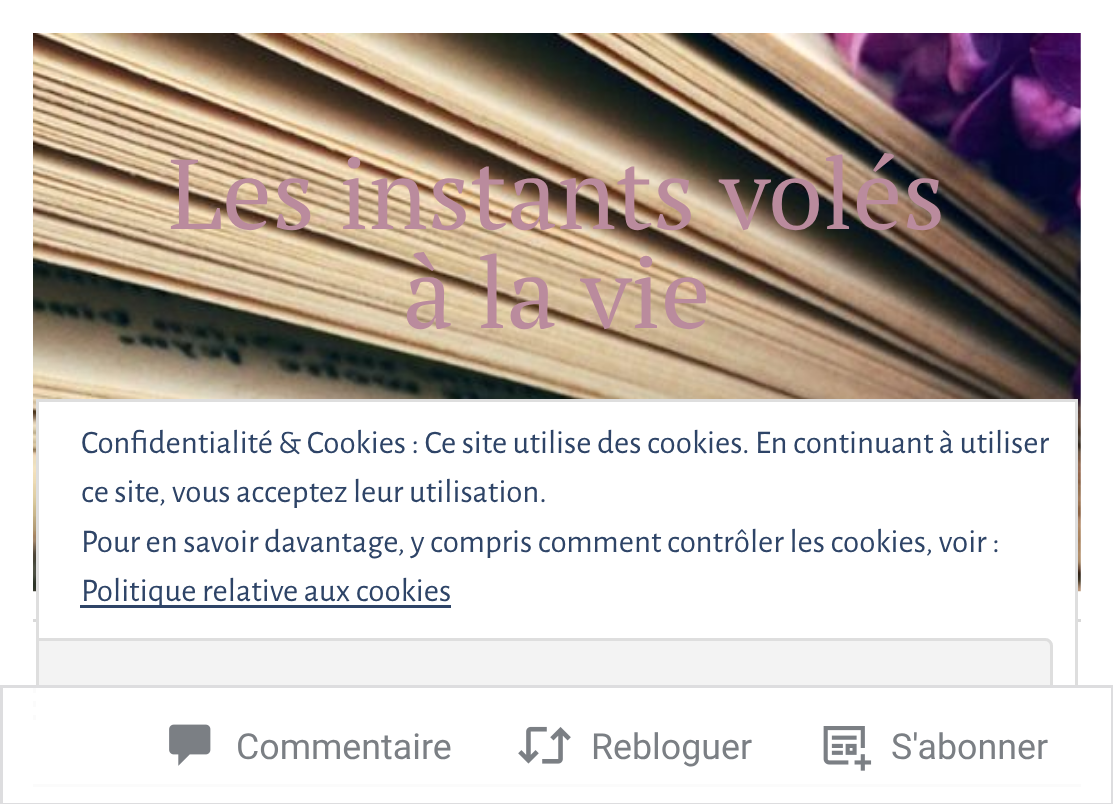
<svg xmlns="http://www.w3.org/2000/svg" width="1113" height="804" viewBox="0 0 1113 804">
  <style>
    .t1 { font: 99px PT Serif; fill: #ba8b9d; }
    .t2 { font: 33px Alegreya Sans; fill: #2e4467; }
    .t3 { font: 35.75px Roboto; fill: #7b7f84; }
  </style>
  <defs>
    <clipPath id="clip1"><rect x="39" y="402" width="1036" height="365"/></clipPath>
  </defs>
  <rect width="100%" height="100%" fill="#fff"/>
  <image x="33" y="33" width="1048" height="559" href="images/1.png"/>
  <text x="168" y="229" class="t1">Les instants volés</text>
  <text x="403" y="328" class="t1">à la vie</text>
  <rect x="33" y="619" width="1048" height="3" fill="#d9d9d9"/>
  <rect x="33" y="784" width="1048" height="3" fill="#404040"/>
  <path d="M33 720V715H77V720ZM33 688H77V693H33ZM33 707V701H77V707Z" fill="#404040"/>
  <rect x="39" y="402" width="1036" height="318" fill="#fff"/>
  <rect x="37.5" y="400.5" width="1039" height="368" fill="none" stroke="#dedede" stroke-width="3"/>
  <text x="81" y="453" class="t2">Confidentialité &amp; Cookies : Ce site utilise des cookies. En continuant à utiliser</text>
  <text x="81" y="502" class="t2">ce site, vous acceptez leur utilisation.</text>
  <text x="81" y="552" class="t2">Pour en savoir davantage, y compris comment contrôler les cookies, voir :</text>
  <rect x="80" y="605" width="371" height="3" fill="#2e4467"/>
  <text x="81" y="601" class="t2">Politique relative aux cookies</text>
  <path d="M39 638H1045C1049.5 638 1053 641.5 1053 646V737C1053 741.5 1049.5 745 1045 745H39Z" fill="#f3f3f3"/>
  <g clip-path="url(#clip1)">
    <rect x="18.5" y="639.5" width="1033" height="104" rx="6.5" fill="none" stroke="#dedede" stroke-width="3"/>
  </g>
  <rect x="33" y="685" width="1048" height="102" fill="#fffffffa"/>
  <rect x="1.5" y="686.5" width="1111" height="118" fill="none" stroke="#dcdcdefa" stroke-width="3"/>
  <image x="169" y="724" width="42" height="42" href="images/2.png"/>
  <text x="236" y="759" class="t3">Commentaire</text>
  <image x="518" y="726" width="53" height="38" href="images/3.png"/>
  <text x="591" y="759" class="t3">Rebloguer</text>
  <image x="823" y="726" width="49" height="45" href="images/4.png"/>
  <text x="891" y="759" class="t3">S'abonner</text>
</svg>
